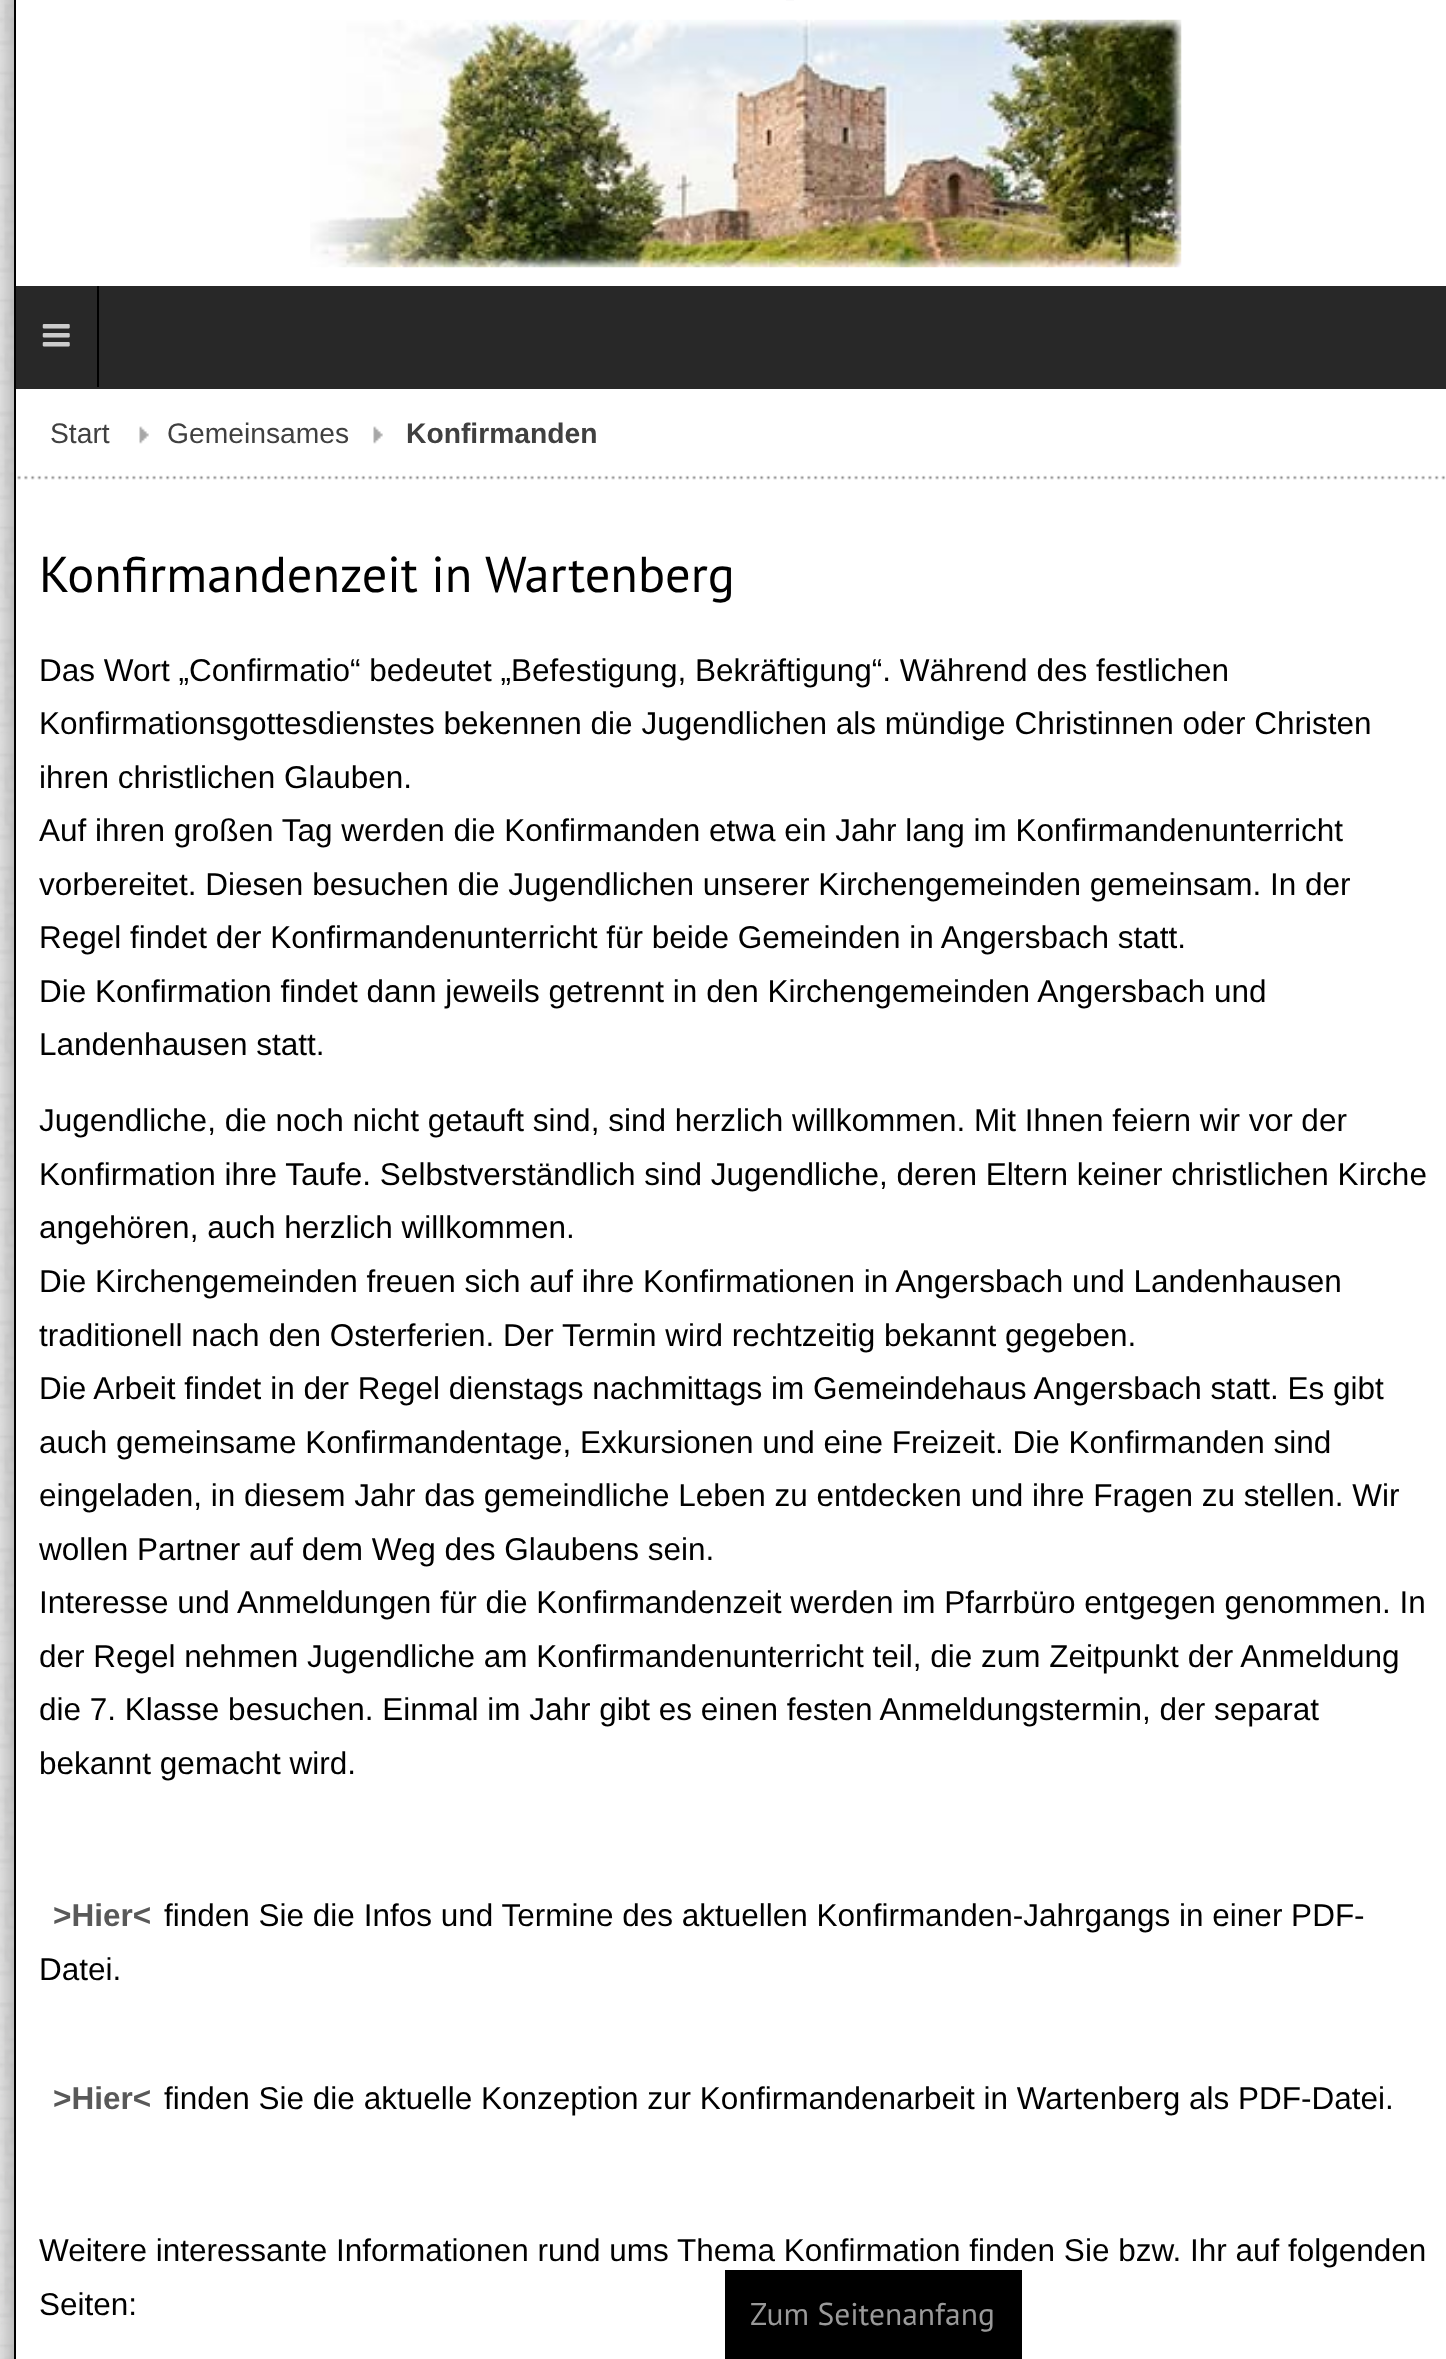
<svg xmlns="http://www.w3.org/2000/svg" width="1446" height="2359" viewBox="0 0 1446 2359">
  <style>
    .t1 { font: 28.25px Liberation Sans; fill: #404040; }
    .t2 { font: bold 28.25px Liberation Sans; fill: #404040; }
    .t3 { font: 50.4px PT Sans; fill: #000; }
    .t4 { font: 31.5px Liberation Sans; fill: #000; }
    .t5 { font: bold 31.5px Liberation Sans; fill: #595959; }
    .t6 { font: 31.5px PT Sans; fill: #999; }
  </style>
  <rect width="100%" height="100%" fill="#fff"/>
  <image x="0" y="0" width="14" height="2359" href="images/1.png"/>
  <rect x="14" y="-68" width="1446" height="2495" fill="#808080" filter="blur(22.5px)"/>
  <rect x="15" y="-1" width="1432" height="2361" fill="none" stroke="#000" stroke-width="2"/>
  <rect x="16" y="0" width="1430" height="2359" fill="#fff"/>
  <rect x="786" y="0" width="8" height="1" fill="#fafafb"/>
  <image x="310" y="19" width="872" height="249" href="images/2.png"/>
  <rect x="16" y="286" width="1430" height="103" fill="#282828"/>
  <rect x="97" y="286" width="2" height="101" fill="#000"/>
  <image x="42" y="324" width="28" height="23" href="images/3.png"/>
  <image x="17" y="475" width="1429" height="5" href="images/4.png"/>
  <image x="139" y="426" width="10" height="18" href="images/5.png"/>
  <text x="50" y="443" class="t1">Start</text>
  <image x="373" y="426" width="10" height="18" href="images/5.png"/>
  <text x="167" y="443" class="t1">Gemeinsames</text>
  <text x="406" y="443" class="t2">Konfirmanden</text>
  <text x="39" y="592" class="t3">Konfirmandenzeit in Wartenberg</text>
  <text x="39" y="681" class="t4">Das Wort „Confirmatio“ bedeutet „Befestigung, Bekräftigung“. Während des festlichen</text>
  <text x="39" y="734" class="t4">Konfirmationsgottesdienstes bekennen die Jugendlichen als mündige Christinnen oder Christen</text>
  <text x="39" y="788" class="t4">ihren christlichen Glauben.</text>
  <text x="39" y="841" class="t4">Auf ihren großen Tag werden die Konfirmanden etwa ein Jahr lang im Konfirmandenunterricht</text>
  <text x="39" y="895" class="t4">vorbereitet. Diesen besuchen die Jugendlichen unserer Kirchengemeinden gemeinsam. In der</text>
  <text x="39" y="948" class="t4">Regel findet der Konfirmandenunterricht für beide Gemeinden in Angersbach statt.</text>
  <text x="39" y="1002" class="t4">Die Konfirmation findet dann jeweils getrennt in den Kirchengemeinden Angersbach und</text>
  <text x="39" y="1055" class="t4">Landenhausen statt.</text>
  <text x="39" y="1131" class="t4">Jugendliche, die noch nicht getauft sind, sind herzlich willkommen. Mit Ihnen feiern wir vor der</text>
  <text x="39" y="1185" class="t4">Konfirmation ihre Taufe. Selbstverständlich sind Jugendliche, deren Eltern keiner christlichen Kirche</text>
  <text x="39" y="1238" class="t4">angehören, auch herzlich willkommen.</text>
  <text x="39" y="1292" class="t4">Die Kirchengemeinden freuen sich auf ihre Konfirmationen in Angersbach und Landenhausen</text>
  <text x="39" y="1346" class="t4">traditionell nach den Osterferien. Der Termin wird rechtzeitig bekannt gegeben.</text>
  <text x="39" y="1399" class="t4">Die Arbeit findet in der Regel dienstags nachmittags im Gemeindehaus Angersbach statt. Es gibt</text>
  <text x="39" y="1453" class="t4">auch gemeinsame Konfirmandentage, Exkursionen und eine Freizeit. Die Konfirmanden sind</text>
  <text x="39" y="1506" class="t4">eingeladen, in diesem Jahr das gemeindliche Leben zu entdecken und ihre Fragen zu stellen. Wir</text>
  <text x="39" y="1560" class="t4">wollen Partner auf dem Weg des Glaubens sein.</text>
  <text x="39" y="1613" class="t4">Interesse und Anmeldungen für die Konfirmandenzeit werden im Pfarrbüro entgegen genommen. In</text>
  <text x="39" y="1667" class="t4">der Regel nehmen Jugendliche am Konfirmandenunterricht teil, die zum Zeitpunkt der Anmeldung</text>
  <text x="39" y="1720" class="t4">die 7. Klasse besuchen. Einmal im Jahr gibt es einen festen Anmeldungstermin, der separat</text>
  <text x="39" y="1774" class="t4">bekannt gemacht wird.</text>
  <text x="53" y="1926" class="t5">&gt;Hier&lt;</text>
  <text x="164" y="1926" class="t4">finden Sie die Infos und Termine des aktuellen Konfirmanden-Jahrgangs in einer PDF-</text>
  <text x="39" y="1980" class="t4">Datei.</text>
  <text x="53" y="2109" class="t5">&gt;Hier&lt;</text>
  <text x="164" y="2109" class="t4">finden Sie die aktuelle Konzeption zur Konfirmandenarbeit in Wartenberg als PDF-Datei.</text>
  <text x="39" y="2261" class="t4">Weitere interessante Informationen rund ums Thema Konfirmation finden Sie bzw. Ihr auf folgenden</text>
  <text x="39" y="2315" class="t4">Seiten:</text>
  <rect x="725" y="2270" width="297" height="89" fill="#000"/>
  <text x="750" y="2325" class="t6">Zum Seitenanfang</text>
</svg>
